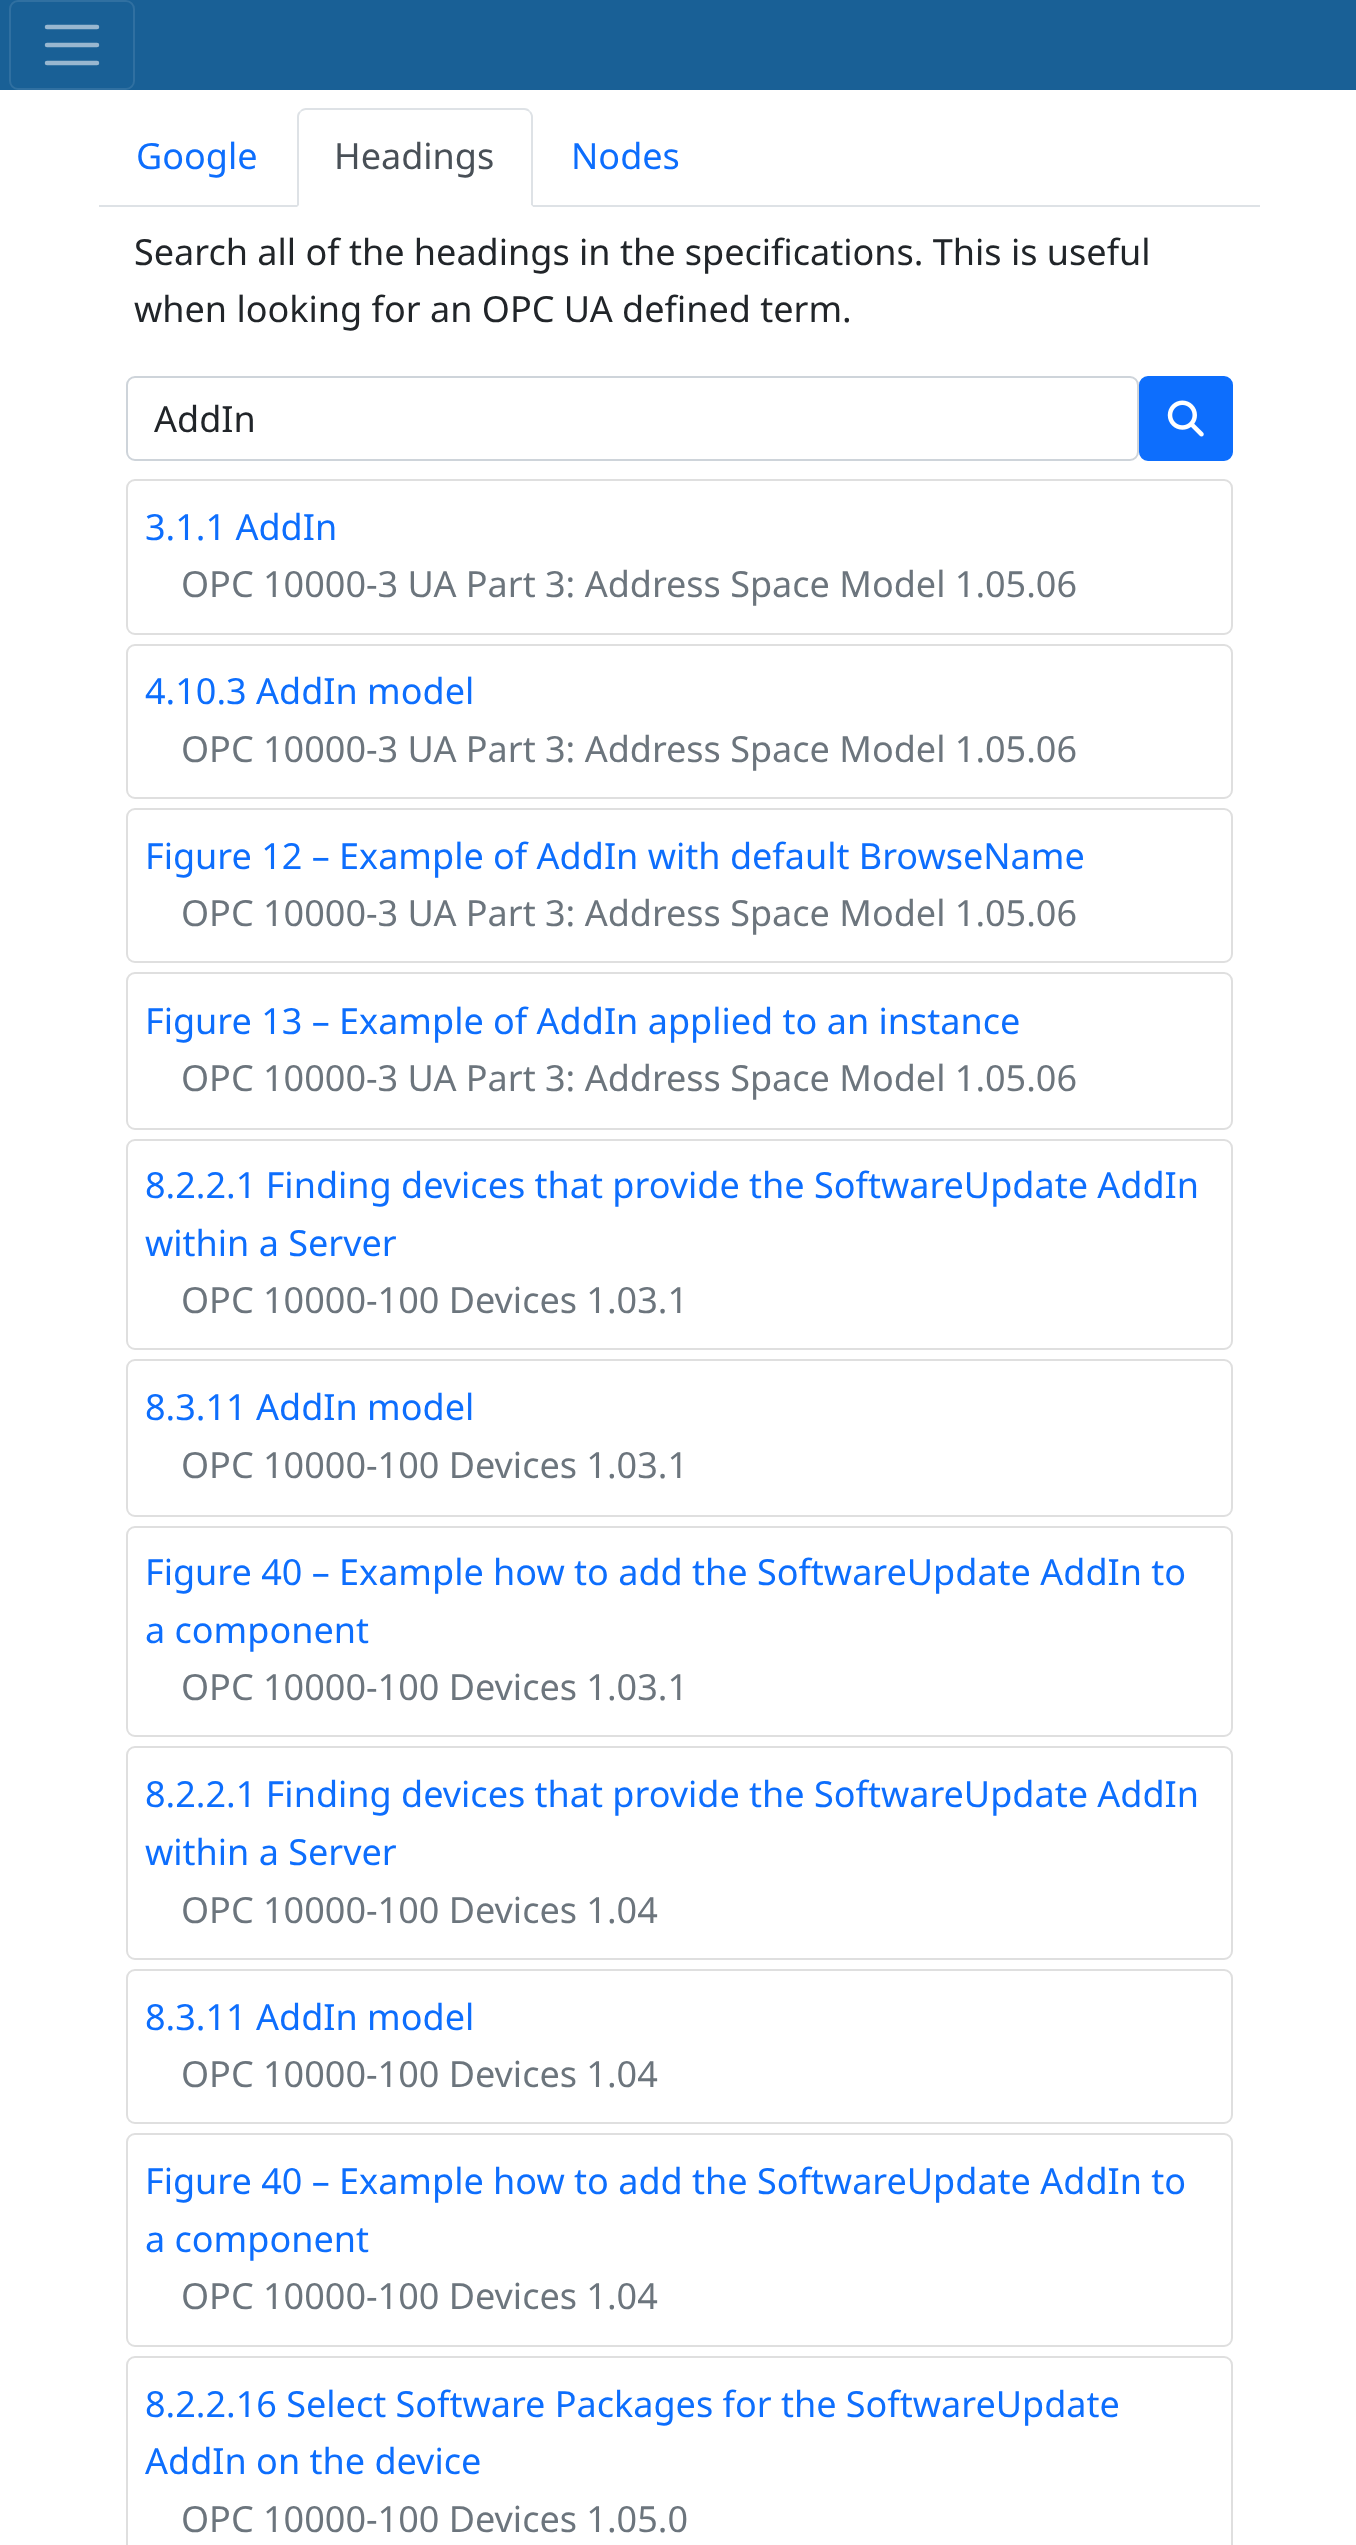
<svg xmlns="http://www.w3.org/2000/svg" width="1356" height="2545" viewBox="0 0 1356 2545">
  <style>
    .t1 { font: 36px Noto Sans; fill: #0d6efd; }
    .t2 { font: 36px Noto Sans; fill: #495057; }
    .t3 { font: 36px Noto Sans; fill: #212529; }
    .t4 { font: 36px Noto Sans; fill: #6c757d; }
  </style>
  <rect width="100%" height="100%" fill="#fff"/>
  <rect x="0" y="0" width="1356" height="90" fill="#196096"/>
  <rect x="10" y="1" width="124" height="88" rx="8" fill="none" stroke="#3070a1" stroke-width="2"/>
  <path d="M47 27H97M47 45H97M47 63H97" fill="none" stroke="#98b7d0" stroke-width="4.5" stroke-linecap="round"/>
  <rect x="99" y="205" width="1161" height="2" fill="#dee2e6"/>
  <text x="136" y="169" class="t1">Google</text>
  <path d="M306 108H524C529 108 533 112 533 117V207H297V117C297 112 301 108 306 108Z" fill="#fff"/>
  <path d="M306 108C304 108 301 109 300 111L301 112C302 111 304 110 306 110H524C526 110 528 111 529 112L530 111C529 109 527 108 524 108Z" fill="#dee2e6"/>
  <path d="M530 111C532 112 533 115 533 117V207L531 205V117C531 115 530 113 529 112Z" fill="#dee2e6"/>
  <path d="M533 207L531 205H299L297 207Z" fill="#fff"/>
  <path d="M297 207L299 205V117C299 115 300 113 301 112L300 111C298 112 297 114 297 117Z" fill="#dee2e6"/>
  <text x="334" y="169" class="t2">Headings</text>
  <text x="571" y="169" class="t1">Nodes</text>
  <text x="134" y="265" class="t3">Search all of the headings in the specifications. This is useful</text>
  <text x="134" y="322" class="t3">when looking for an OPC UA defined term.</text>
  <rect x="127" y="377" width="1011" height="83" rx="8" fill="none" stroke="#ced4da" stroke-width="2"/>
  <text x="154" y="432" class="t3">AddIn</text>
  <rect x="1140" y="377" width="92" height="83" rx="8" fill="#0d6efd" stroke="#0d6efd" stroke-width="2"/>
  <image x="1167" y="400" width="37" height="37" href="images/1.png"/>
  <rect x="127" y="480" width="1105" height="154" rx="8" fill="none" stroke="#dfdfdf" stroke-width="2"/>
  <text x="145" y="540" class="t1">3.1.1 AddIn</text>
  <text x="181" y="597" class="t4">OPC 10000-3 UA Part 3: Address Space Model 1.05.06</text>
  <rect x="127" y="645" width="1105" height="153" rx="8" fill="none" stroke="#dfdfdf" stroke-width="2"/>
  <text x="145" y="704" class="t1">4.10.3 AddIn model</text>
  <text x="181" y="762" class="t4">OPC 10000-3 UA Part 3: Address Space Model 1.05.06</text>
  <rect x="127" y="809" width="1105" height="153" rx="8" fill="none" stroke="#dfdfdf" stroke-width="2"/>
  <text x="145" y="869" class="t1">Figure 12 – Example of AddIn with default BrowseName</text>
  <text x="181" y="926" class="t4">OPC 10000-3 UA Part 3: Address Space Model 1.05.06</text>
  <rect x="127" y="973" width="1105" height="156" rx="8" fill="none" stroke="#dfdfdf" stroke-width="2"/>
  <text x="145" y="1034" class="t1">Figure 13 – Example of AddIn applied to an instance</text>
  <text x="181" y="1091" class="t4">OPC 10000-3 UA Part 3: Address Space Model 1.05.06</text>
  <rect x="127" y="1140" width="1105" height="209" rx="8" fill="none" stroke="#dfdfdf" stroke-width="2"/>
  <text x="145" y="1198" class="t1">8.2.2.1 Finding devices that provide the SoftwareUpdate AddIn</text>
  <text x="145" y="1256" class="t1">within a Server</text>
  <text x="181" y="1313" class="t4">OPC 10000-100 Devices 1.03.1</text>
  <rect x="127" y="1360" width="1105" height="156" rx="8" fill="none" stroke="#dfdfdf" stroke-width="2"/>
  <text x="145" y="1420" class="t1">8.3.11 AddIn model</text>
  <text x="181" y="1478" class="t4">OPC 10000-100 Devices 1.03.1</text>
  <rect x="127" y="1527" width="1105" height="209" rx="8" fill="none" stroke="#dfdfdf" stroke-width="2"/>
  <text x="145" y="1585" class="t1">Figure 40 – Example how to add the SoftwareUpdate AddIn to</text>
  <text x="145" y="1643" class="t1">a component</text>
  <text x="181" y="1700" class="t4">OPC 10000-100 Devices 1.03.1</text>
  <rect x="127" y="1747" width="1105" height="212" rx="8" fill="none" stroke="#dfdfdf" stroke-width="2"/>
  <text x="145" y="1807" class="t1">8.2.2.1 Finding devices that provide the SoftwareUpdate AddIn</text>
  <text x="145" y="1865" class="t1">within a Server</text>
  <text x="181" y="1923" class="t4">OPC 10000-100 Devices 1.04</text>
  <rect x="127" y="1970" width="1105" height="153" rx="8" fill="none" stroke="#dfdfdf" stroke-width="2"/>
  <text x="145" y="2030" class="t1">8.3.11 AddIn model</text>
  <text x="181" y="2087" class="t4">OPC 10000-100 Devices 1.04</text>
  <rect x="127" y="2134" width="1105" height="212" rx="8" fill="none" stroke="#dfdfdf" stroke-width="2"/>
  <text x="145" y="2194" class="t1">Figure 40 – Example how to add the SoftwareUpdate AddIn to</text>
  <text x="145" y="2252" class="t1">a component</text>
  <text x="181" y="2309" class="t4">OPC 10000-100 Devices 1.04</text>
  <rect x="127" y="2357" width="1105" height="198" rx="8" fill="none" stroke="#dfdfdf" stroke-width="2"/>
  <text x="145" y="2417" class="t1">8.2.2.16 Select Software Packages for the SoftwareUpdate</text>
  <text x="145" y="2474" class="t1">AddIn on the device</text>
  <text x="181" y="2532" class="t4">OPC 10000-100 Devices 1.05.0</text>
</svg>
